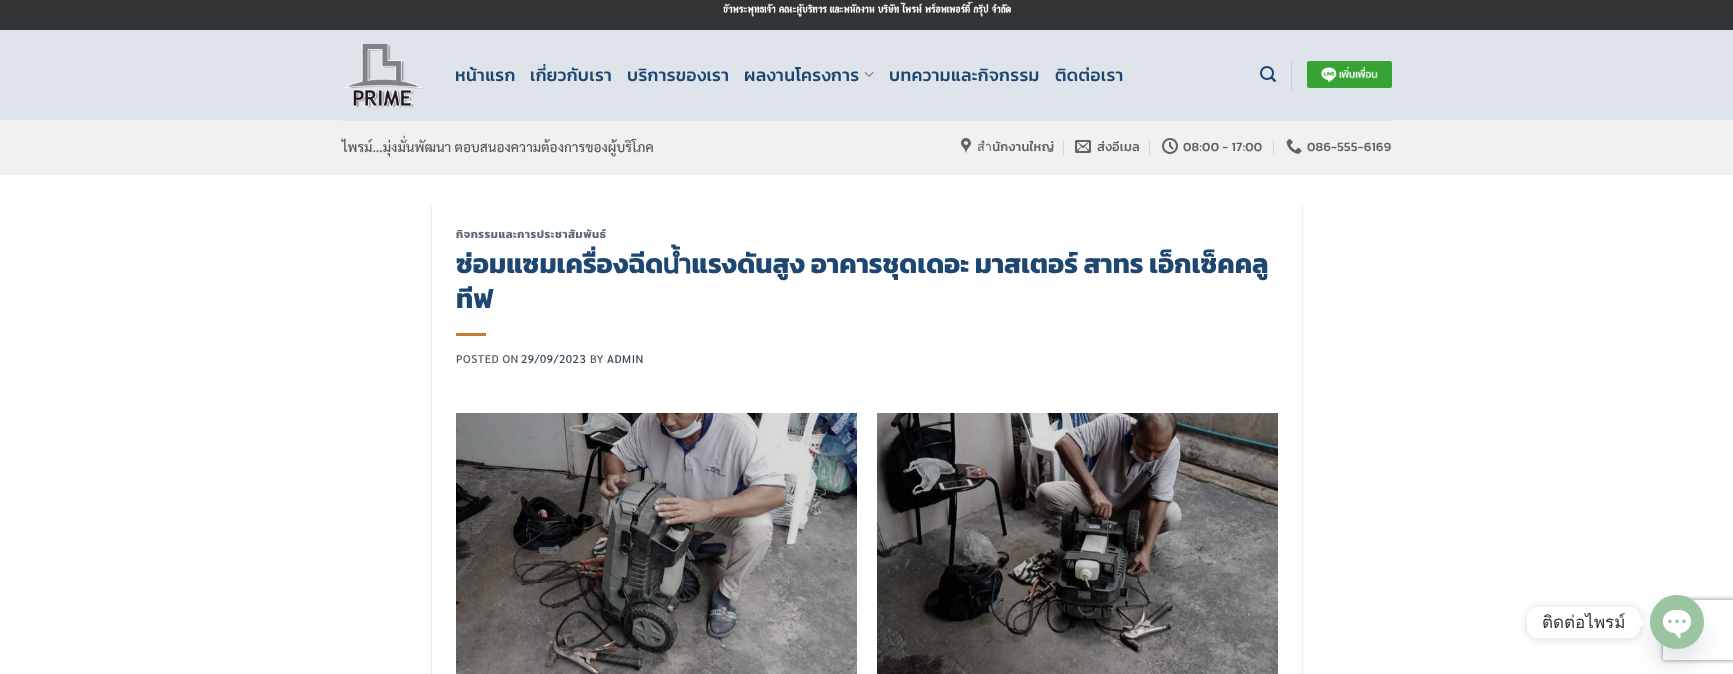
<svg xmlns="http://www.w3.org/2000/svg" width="1733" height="674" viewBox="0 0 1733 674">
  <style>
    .t1 { font: 500 17.5px Kanit; letter-spacing: 0.3px; fill: #1d4671; }
    .t2 { font: 500 13.6px Sarabun; fill: #595959; }
    .t3 { font: 500 12.75px Kanit; letter-spacing: 0.25px; fill: #636363; }
    .t4 { font: bold 11.25px Kanit; letter-spacing: 0.55px; fill: #616c79; }
    .t5 { font: bold 27.2px Kanit; fill: #1d4671; }
    .t6 { font: 500 11.25px Sarabun; letter-spacing: 0.55px; fill: #595959; }
    .t7 { font: 500 11.25px Sarabun; letter-spacing: 0.55px; fill: #3a4757; }
    .t8 { font: 17px Loma; fill: #333; }
  </style>
  <defs>
    <clipPath id="clip1"><path d="M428 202H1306V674H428ZM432 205H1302V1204H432Z" clip-rule="evenodd"/></clipPath>
    <clipPath id="clip2"><path d="M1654 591H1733V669H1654ZM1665 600H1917C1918 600 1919 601 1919 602V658C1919 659 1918 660 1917 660H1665C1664 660 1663 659 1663 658V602C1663 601 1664 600 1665 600Z" clip-rule="evenodd"/></clipPath>
  </defs>
  <rect width="100%" height="100%" fill="#fff"/>
  <rect x="0" y="0" width="1733" height="30" fill="#333436"/>
  <image x="723" y="1" width="288" height="16" href="images/1.png"/>
  <rect x="0" y="30" width="1733" height="90" fill="#dee4ea"/>
  <image x="345" y="43" width="78" height="65" href="images/2.png"/>
  <text x="455" y="81" class="t1">หน้าแรก</text>
  <text x="530" y="81" class="t1">เกี่ยวกับเรา</text>
  <text x="627" y="81" class="t1">บริการของเรา</text>
  <text x="744" y="81" class="t1">ผลงานโครงการ</text>
  <image x="864" y="71" width="10" height="6" href="images/3.png"/>
  <text x="889" y="81" class="t1">บทความและกิจกรรม</text>
  <text x="1055" y="81" class="t1">ติดต่อเรา</text>
  <image x="1260" y="66" width="16" height="16" href="images/4.png"/>
  <rect x="1291" y="60" width="1" height="30" fill="#c8cdd3"/>
  <image x="1307" y="61" width="85" height="27" href="images/5.png"/>
  <rect x="0" y="120" width="1733" height="55" fill="#f1f1f1"/>
  <rect x="342" y="120" width="1050" height="1" fill="#e2e2e2"/>
  <text x="342" y="152" class="t2">ไพรม์…มุ่งมั่นพัฒนา ตอบสนองความต้องการของผู้บริโภค</text>
  <image x="961" y="138" width="10" height="16" href="images/6.png"/>
  <text x="977" y="151" class="t3">สำนักงานใหญ่</text>
  <rect x="1063" y="140" width="1" height="15" fill="#d9d9d9"/>
  <image x="1075" y="140" width="16" height="13" href="images/7.png"/>
  <text x="1097" y="151" class="t3">ส่งอีเมล</text>
  <rect x="1149" y="140" width="1" height="15" fill="#d9d9d9"/>
  <image x="1162" y="138" width="16" height="16" href="images/8.png"/>
  <text x="1183" y="151" class="t3">08:00 - 17:00</text>
  <rect x="1273" y="140" width="1" height="15" fill="#d9d9d9"/>
  <image x="1286" y="139" width="16" height="15" href="images/9.png"/>
  <text x="1307" y="151" class="t3">086-555-6169</text>
  <g clip-path="url(#clip1)">
    <rect x="432" y="206" width="870" height="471" fill="#0000003d" filter="blur(1px)"/>
  </g>
  <text x="456" y="238" class="t4">กิจกรรมและการประชาสัมพันธ์</text>
  <text x="456" y="273" class="t5">ซ่อมแซมเครื่องฉีดน้ำแรงดันสูง อาคารชุดเดอะ มาสเตอร์ สาทร เอ็กเซ็คคลู</text>
  <text x="456" y="308" class="t5">ทีฟ</text>
  <rect x="456" y="333" width="30" height="3" fill="#c67a35"/>
  <text x="456" y="363" class="t6">POSTED ON</text>
  <text x="521" y="363" class="t7">29/09/2023</text>
  <text x="590" y="363" class="t6">BY</text>
  <text x="607" y="363" class="t7">ADMIN</text>
  <image x="456" y="413" width="401" height="261" href="images/10.png"/>
  <image x="877" y="413" width="401" height="261" href="images/11.png"/>
  <rect x="1527" y="608" width="113" height="31" rx="10" fill="#00000026" filter="blur(4px)"/>
  <rect x="1527" y="607" width="113" height="31" rx="10" fill="#fff"/>
  <text x="1542" y="628" class="t8">ติดต่อไพรม์</text>
  <path d="M1640 627.5V617.5L1645 622.5Z" fill="#fff"/>
  <rect x="1650" y="611" width="54" height="54" rx="27" fill="#53667329" filter="blur(12px)"/>
  <g clip-path="url(#clip2)">
    <rect x="1663" y="600" width="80" height="60" rx="2" fill="#808080" filter="blur(2.5px)"/>
  </g>
  <image x="1650" y="595" width="54" height="54" href="images/12.png"/>
</svg>
